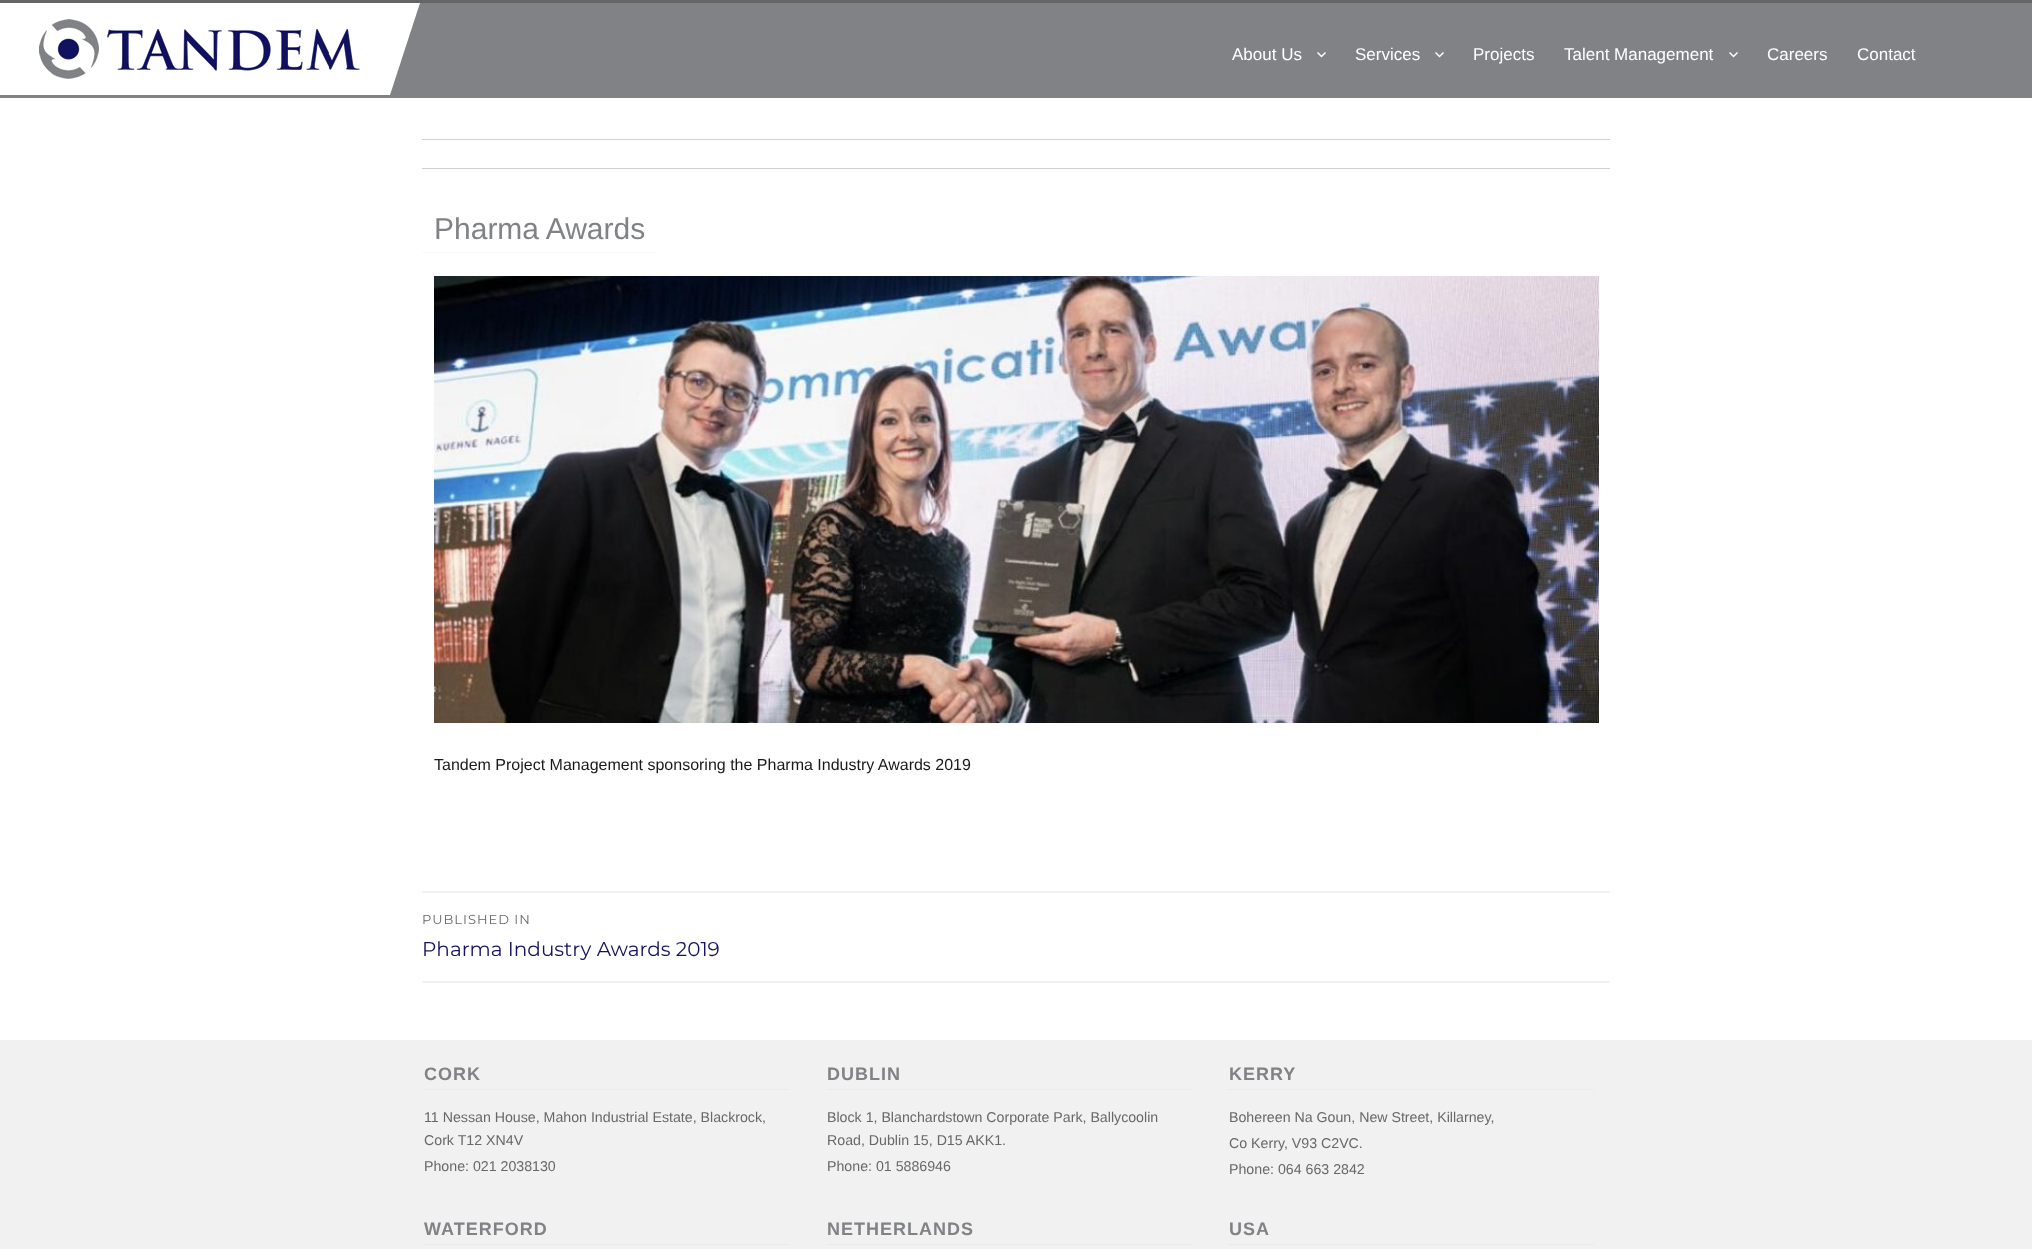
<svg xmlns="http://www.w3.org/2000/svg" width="2032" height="1249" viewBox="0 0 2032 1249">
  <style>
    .t1 { font: 17px Liberation Sans; fill: #fff; }
    .t2 { font: 30px Liberation Sans; fill: #818286; }
    .t3 { font: 16px Liberation Sans; fill: #1a1a1a; }
    .t4 { font: 100 13px Montserrat; letter-spacing: 1px; fill: #686868; }
    .t5 { font: 100 20px Montserrat; fill: #16125f; }
    .t6 { font: bold 18px Liberation Sans; letter-spacing: 1px; fill: #818286; }
    .t7 { font: 14.2px Liberation Sans; fill: #686868; }
  </style>
  <rect width="100%" height="100%" fill="#818286"/>
  <rect x="0" y="0" width="2032" height="3" fill="#666"/>
  <image x="0" y="3" width="420" height="92" href="images/1.png"/>
  <text x="1232" y="60" class="t1">About Us</text>
  <image x="1317" y="52" width="9" height="6" href="images/2.png"/>
  <text x="1355" y="60" class="t1">Services</text>
  <image x="1435" y="52" width="9" height="6" href="images/2.png"/>
  <text x="1473" y="60" class="t1">Projects</text>
  <text x="1564" y="60" class="t1">Talent Management</text>
  <image x="1729" y="52" width="9" height="6" href="images/2.png"/>
  <text x="1767" y="60" class="t1">Careers</text>
  <text x="1857" y="60" class="t1">Contact</text>
  <rect x="0" y="98" width="2032" height="942" fill="#fff"/>
  <rect x="422" y="139" width="1188" height="1" fill="#d1d1d1"/>
  <rect x="422" y="168" width="1188" height="1" fill="#d1d1d1"/>
  <rect x="422" y="252" width="235" height="1" fill="#f9f9f9"/>
  <text x="434" y="239" class="t2">Pharma Awards</text>
  <image x="434" y="276" width="1165" height="447" href="images/3.png"/>
  <text x="434" y="770" class="t3">Tandem Project Management sponsoring the Pharma Industry Awards 2019</text>
  <rect x="422" y="891" width="1188" height="2" fill="#f1f1f1"/>
  <rect x="422" y="981" width="1188" height="2" fill="#f1f1f1"/>
  <text x="422" y="924" class="t4">PUBLISHED IN</text>
  <text x="422" y="956" class="t5">Pharma Industry Awards 2019</text>
  <rect x="0" y="1040" width="2032" height="209" fill="#f1f1f1"/>
  <path d="M424 1089.5H790" fill="none" stroke="#e3e3e3" stroke-dasharray="1 1"/>
  <text x="424" y="1080" class="t6">CORK</text>
  <text x="424" y="1122" class="t7">11 Nessan House, Mahon Industrial Estate, Blackrock,</text>
  <text x="424" y="1145" class="t7">Cork T12 XN4V</text>
  <text x="424" y="1171" class="t7">Phone: 021 2038130</text>
  <path d="M827 1089.5H1193" fill="none" stroke="#e3e3e3" stroke-dasharray="1 1"/>
  <text x="827" y="1080" class="t6">DUBLIN</text>
  <text x="827" y="1122" class="t7">Block 1, Blanchardstown Corporate Park, Ballycoolin</text>
  <text x="827" y="1145" class="t7">Road, Dublin 15, D15 AKK1.</text>
  <text x="827" y="1171" class="t7">Phone: 01 5886946</text>
  <path d="M1229 1089.5H1595" fill="none" stroke="#e3e3e3" stroke-dasharray="1 1"/>
  <text x="1229" y="1080" class="t6">KERRY</text>
  <text x="1229" y="1122" class="t7">Bohereen Na Goun, New Street, Killarney,</text>
  <text x="1229" y="1148" class="t7">Co Kerry, V93 C2VC.</text>
  <text x="1229" y="1174" class="t7">Phone: 064 663 2842</text>
  <path d="M424 1244.5H790" fill="none" stroke="#e3e3e3" stroke-dasharray="1 1"/>
  <text x="424" y="1235" class="t6">WATERFORD</text>
  <path d="M827 1244.5H1193" fill="none" stroke="#e3e3e3" stroke-dasharray="1 1"/>
  <text x="827" y="1235" class="t6">NETHERLANDS</text>
  <path d="M1229 1244.5H1595" fill="none" stroke="#e3e3e3" stroke-dasharray="1 1"/>
  <text x="1229" y="1235" class="t6">USA</text>
</svg>
